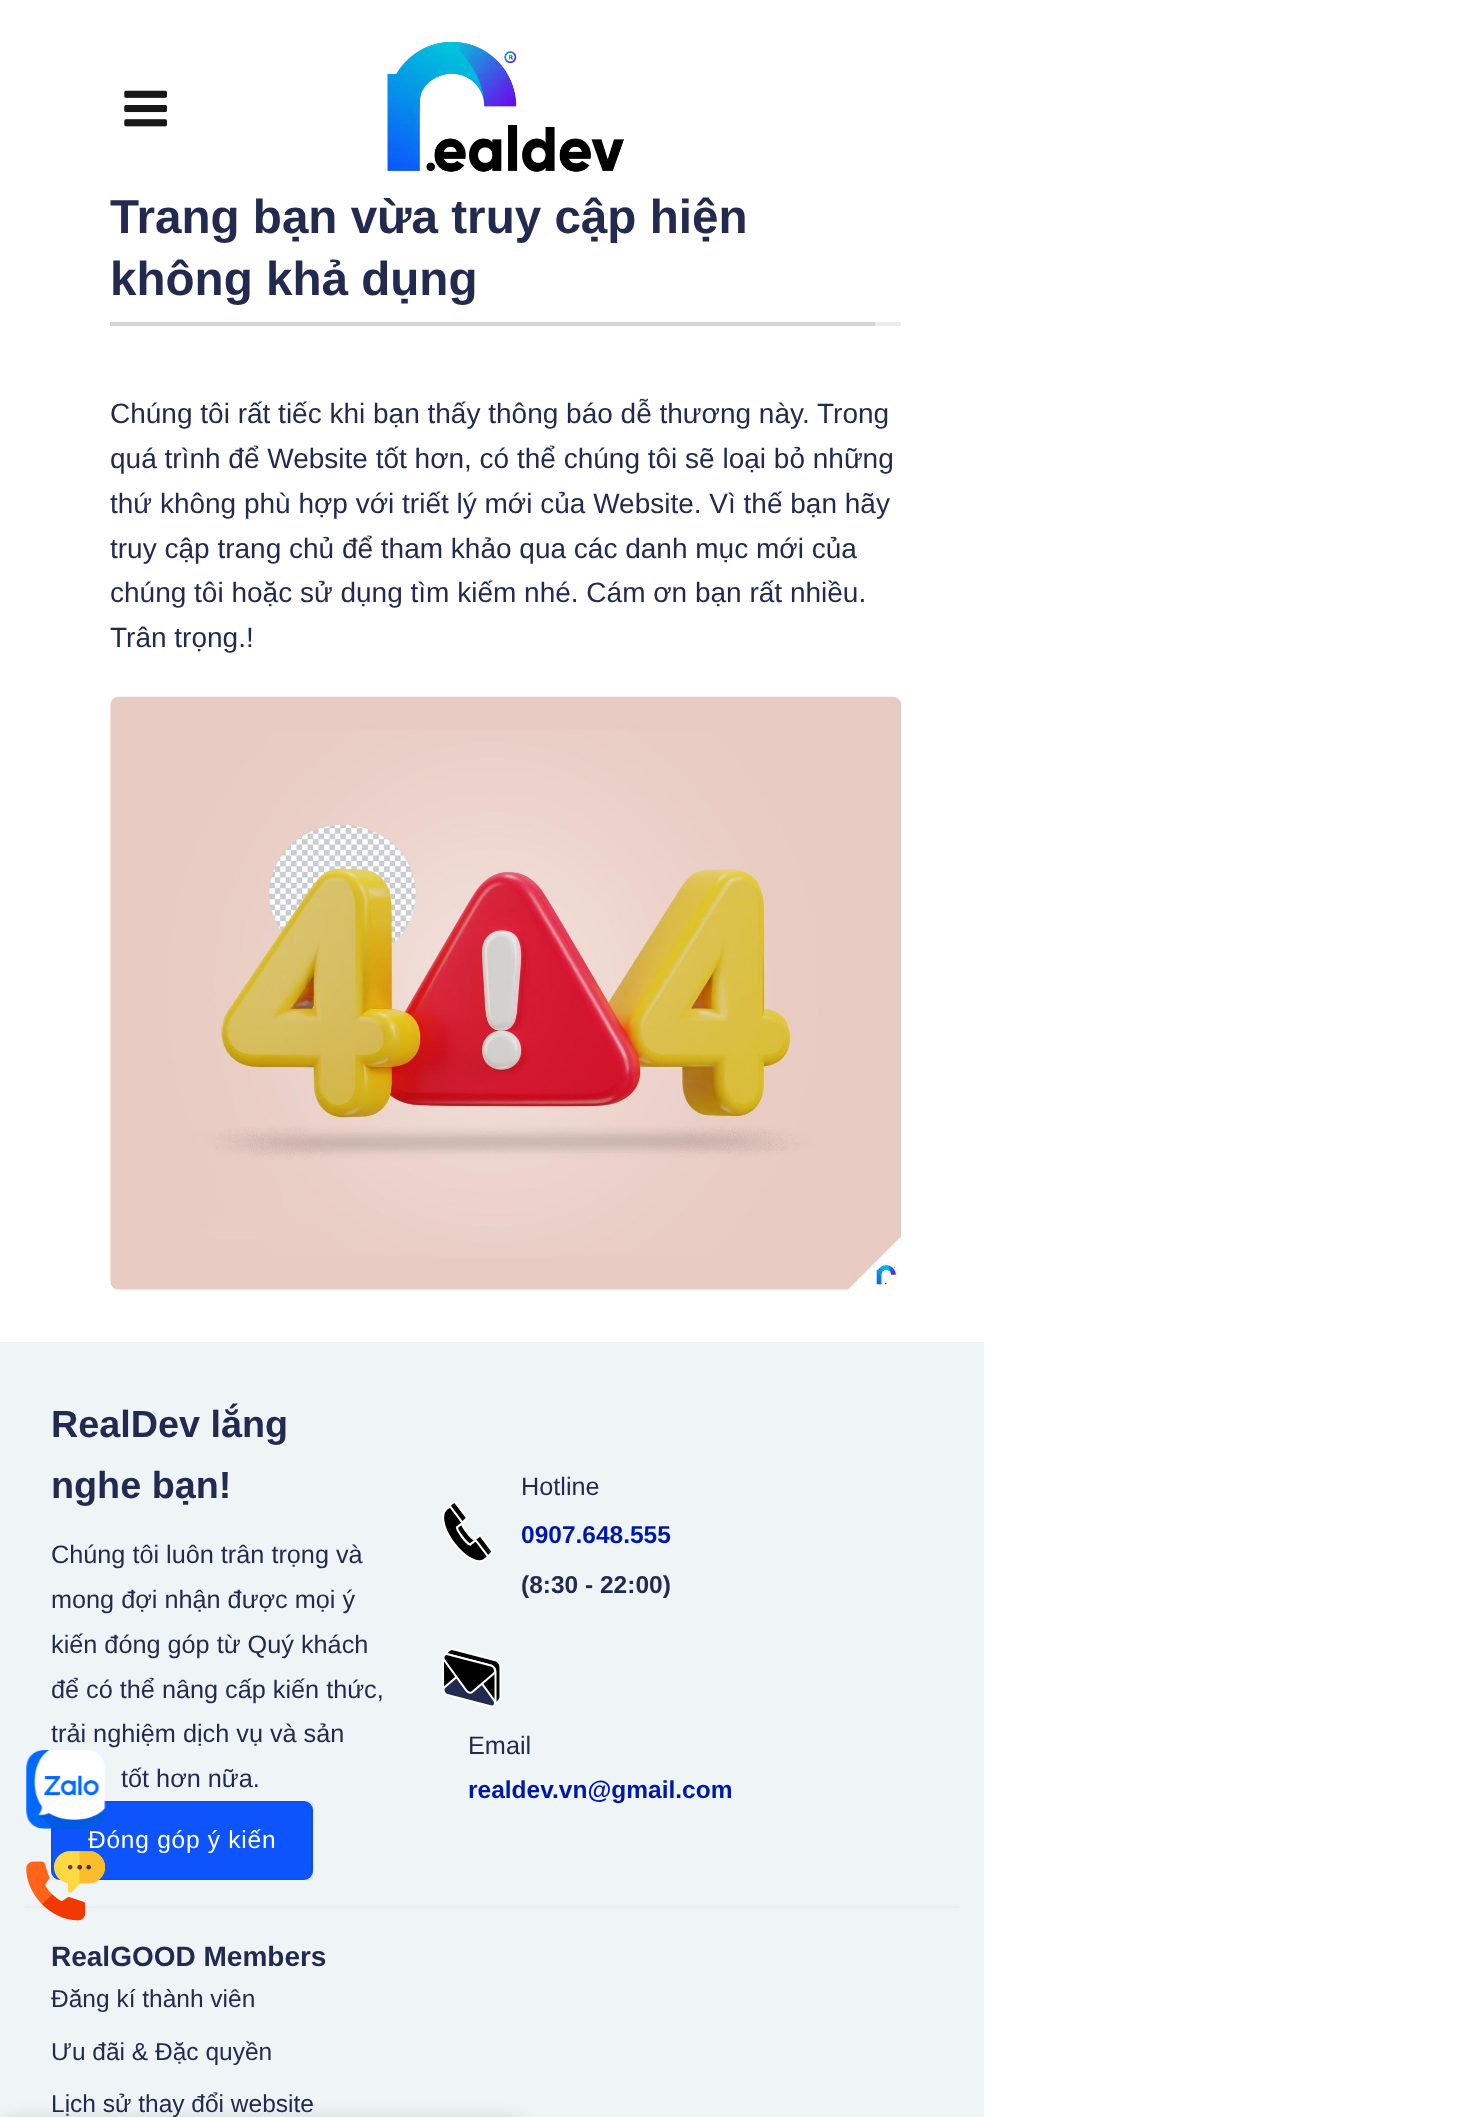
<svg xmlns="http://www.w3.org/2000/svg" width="1484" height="2117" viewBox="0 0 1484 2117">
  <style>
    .t1 { font: bold 47.6px Liberation Sans; fill: #222b4f; }
    .t2 { font: 28px Liberation Sans; fill: #222b4f; }
    .t3 { font: bold 37.75px Liberation Sans; fill: #222b4f; }
    .t4 { font: 25.25px Liberation Sans; fill: #222b4f; }
    .t5 { font: 24.5px Liberation Sans; letter-spacing: 0.75px; fill: #fff; }
    .t6 { font: bold 24.5px Liberation Sans; fill: #0019a4; }
    .t7 { font: bold 24.5px Liberation Sans; fill: #222b4f; }
    .t8 { font: bold 28px Liberation Sans; fill: #222b4f; }
    .t9 { font: 24.5px Liberation Sans; fill: #222b4f; }
  </style>
  <rect width="100%" height="100%" fill="#fff"/>
  <image x="124" y="90" width="43" height="37" href="images/1.png"/>
  <image x="387" y="41" width="237" height="131" href="images/2.png"/>
  <rect x="875" y="322" width="26" height="4" fill="#ececec"/>
  <rect x="110" y="322" width="765" height="4" fill="#d4d4d4"/>
  <text x="110" y="233" class="t1">Trang bạn vừa truy cập hiện</text>
  <text x="110" y="295" class="t1">không khả dụng</text>
  <text x="110" y="423" class="t2">Chúng tôi rất tiếc khi bạn thấy thông báo dễ thương này. Trong</text>
  <text x="110" y="468" class="t2">quá trình để Website tốt hơn, có thể chúng tôi sẽ loại bỏ những</text>
  <text x="110" y="513" class="t2">thứ không phù hợp với triết lý mới của Website. Vì thế bạn hãy</text>
  <text x="110" y="558" class="t2">truy cập trang chủ để tham khảo qua các danh mục mới của</text>
  <text x="110" y="602" class="t2">chúng tôi hoặc sử dụng tìm kiếm nhé. Cám ơn bạn rất nhiều.</text>
  <text x="110" y="647" class="t2">Trân trọng.!</text>
  <image x="110" y="696" width="792" height="594" href="images/3.png"/>
  <rect x="0" y="1342" width="984" height="775" fill="#eff4f7"/>
  <text x="51" y="1437" class="t3">RealDev lắng</text>
  <text x="51" y="1498" class="t3">nghe bạn!</text>
  <text x="51" y="1563" class="t4">Chúng tôi luôn trân trọng và</text>
  <text x="51" y="1608" class="t4">mong đợi nhận được mọi ý</text>
  <text x="51" y="1653" class="t4">kiến đóng góp từ Quý khách</text>
  <text x="51" y="1698" class="t4">để có thể nâng cấp kiến thức,</text>
  <text x="51" y="1742" class="t4">trải nghiệm dịch vụ và sản</text>
  <text x="121" y="1787" class="t4">tốt hơn nữa.</text>
  <rect x="51" y="1801" width="262" height="79" rx="9" fill="#0d54fc"/>
  <rect x="52" y="1802" width="260" height="77" fill="none" stroke="#0000000d" stroke-width="2"/>
  <text x="88" y="1848" class="t5">Đóng góp ý kiến</text>
  <image x="442" y="1501" width="51" height="62" href="images/4.png"/>
  <text x="521" y="1495" class="t4">Hotline</text>
  <text x="521" y="1543" class="t6">0907.648.555</text>
  <text x="521" y="1593" class="t7">(8:30 - 22:00)</text>
  <image x="442" y="1648" width="60" height="60" href="images/5.png"/>
  <text x="468" y="1754" class="t4">Email</text>
  <text x="468" y="1798" class="t6">realdev.vn@gmail.com</text>
  <rect x="25" y="1906" width="934" height="2" fill="#e9edef"/>
  <text x="51" y="1966" class="t8">RealGOOD Members</text>
  <text x="51" y="2007" class="t9">Đăng kí thành viên</text>
  <text x="51" y="2060" class="t9">Ưu đãi &amp; Đặc quyền</text>
  <text x="51" y="2112" class="t9">Lịch sử thay đổi website</text>
  <image x="26" y="1750" width="80" height="79" href="images/6.png"/>
  <image x="26" y="1851" width="79" height="70" href="images/7.png"/>
  <rect x="0" y="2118" width="525" height="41" rx="18" fill="#00000024" filter="blur(8px)"/>
</svg>
